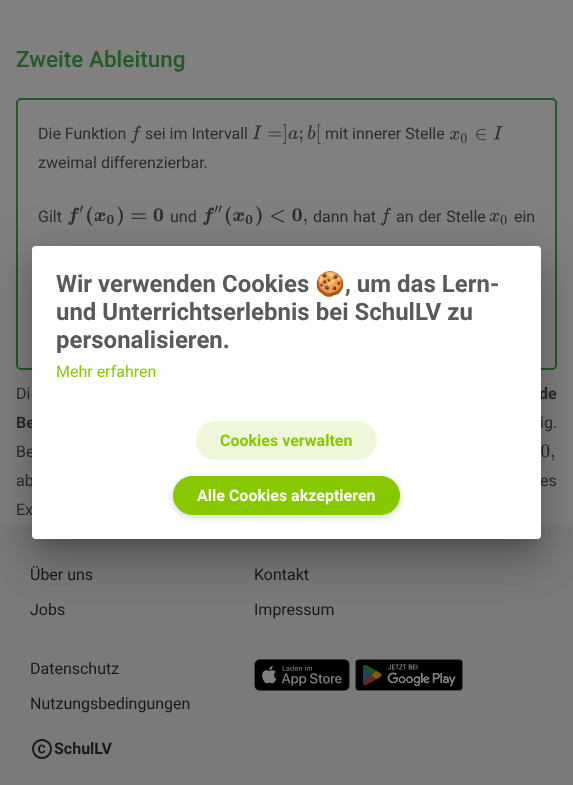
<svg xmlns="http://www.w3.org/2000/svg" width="573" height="785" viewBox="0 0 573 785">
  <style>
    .t1 { font: 500 22.5px Roboto; fill: #225a28; }
    .t2 { font: 16px Roboto; fill: #2d2d2d; }
    .t3 { font: bold 16px Roboto; fill: #2d2d2d; }
    .t4 { font: 16px Roboto; fill: #1a1a1a; }
    .t5 { font: bold 16px Roboto; fill: #1a1a1a; }
    .t6 { font: bold 24px Roboto; fill: #5a5a5a; }
    .t7 { font: bold 24px Noto Color Emoji; fill: #5a5a5a; }
    .t8 { font: 16px Roboto; fill: #87c800; }
    .t9 { font: bold 16px Roboto; fill: #87c800; }
    .t10 { font: bold 16px Roboto; fill: #fff; }
  </style>
  <rect width="100%" height="100%" fill="#808080"/>
  <text x="16" y="67" class="t1">Zweite Ableitung</text>
  <rect x="17" y="99" width="539" height="270" rx="4" fill="none" stroke="#225a28" stroke-width="2"/>
  <text x="38" y="139" class="t2">Die Funktion</text>
  <image x="131" y="125" width="10" height="19" href="images/1.png"/>
  <text x="145" y="139" class="t2">sei im Intervall</text>
  <image x="252" y="124" width="69" height="20" href="images/2.png"/>
  <text x="325" y="139" class="t2">mit innerer Stelle</text>
  <image x="450" y="126" width="53" height="17" href="images/3.png"/>
  <text x="38" y="168" class="t2">zweimal differenzierbar.</text>
  <text x="38" y="222" class="t2">Gilt</text>
  <image x="68" y="205" width="96" height="21" href="images/4.png"/>
  <text x="170" y="222" class="t2">und</text>
  <image x="203" y="205" width="104" height="21" href="images/5.png"/>
  <text x="313" y="222" word-spacing="1" class="t2">dann hat</text>
  <image x="381" y="207" width="10" height="19" href="images/1.png"/>
  <text x="396" y="222" word-spacing="1" class="t2">an der Stelle</text>
  <image x="489" y="212" width="18" height="13" href="images/6.png"/>
  <text x="514" y="222" class="t2">ein</text>
  <text x="16" y="399" word-spacing="10" class="t2">Di</text>
  <text x="539" y="399" class="t3">de</text>
  <text x="16" y="428" class="t3">Be</text>
  <text x="540" y="428" word-spacing="11" class="t2">ig.</text>
  <text x="16" y="457" word-spacing="1" class="t2">Be</text>
  <image x="541" y="444" width="14" height="17" href="images/7.png"/>
  <text x="16" y="486" class="t2">ab</text>
  <text x="540" y="486" word-spacing="2" class="t2">es</text>
  <text x="16" y="515" class="t2">Ex</text>
  <rect x="0" y="525" width="573" height="260" fill="#7a7a7a"/>
  <text x="30" y="580" class="t4">Über uns</text>
  <text x="30" y="615" class="t4">Jobs</text>
  <text x="254" y="580" class="t4">Kontakt</text>
  <text x="254" y="615" class="t4">Impressum</text>
  <text x="30" y="674" class="t4">Datenschutz</text>
  <text x="30" y="709" class="t4">Nutzungsbedingungen</text>
  <image x="254" y="659" width="96" height="32" href="images/8.png"/>
  <image x="355" y="659" width="108" height="32" href="images/9.png"/>
  <image x="32" y="739" width="20" height="20" href="images/10.png"/>
  <text x="54" y="754" class="t5">SchulLV</text>
  <rect x="24" y="247" width="525" height="309" rx="12" fill="#0000001f" filter="blur(23px)"/>
  <rect x="29" y="267" width="515" height="299" rx="7" fill="#00000024" filter="blur(19px)"/>
  <rect x="39" y="264" width="495" height="279" fill="#00000033" filter="blur(7.5px)"/>
  <rect x="32" y="246" width="509" height="293" rx="4" fill="#fff"/>
  <text x="56" y="292" class="t6">Wir verwenden Cookies</text>
  <text x="315" y="292" class="t7">🍪</text>
  <text x="345" y="292" class="t6">, um das Lern-</text>
  <text x="56" y="320" class="t6">und Unterrichtserlebnis bei SchulLV zu</text>
  <text x="56" y="348" class="t6">personalisieren.</text>
  <text x="56" y="377" class="t8">Mehr erfahren</text>
  <rect x="196" y="421" width="181" height="39" rx="19.5" fill="#eef7da"/>
  <text x="220" y="446" class="t9">Cookies verwalten</text>
  <rect x="173" y="478" width="227" height="39" rx="19.5" fill="#898d8066" filter="blur(3.5px)"/>
  <rect x="173" y="476" width="227" height="39" rx="19.5" fill="#87c800"/>
  <text x="197" y="501" class="t10">Alle Cookies akzeptieren</text>
</svg>
